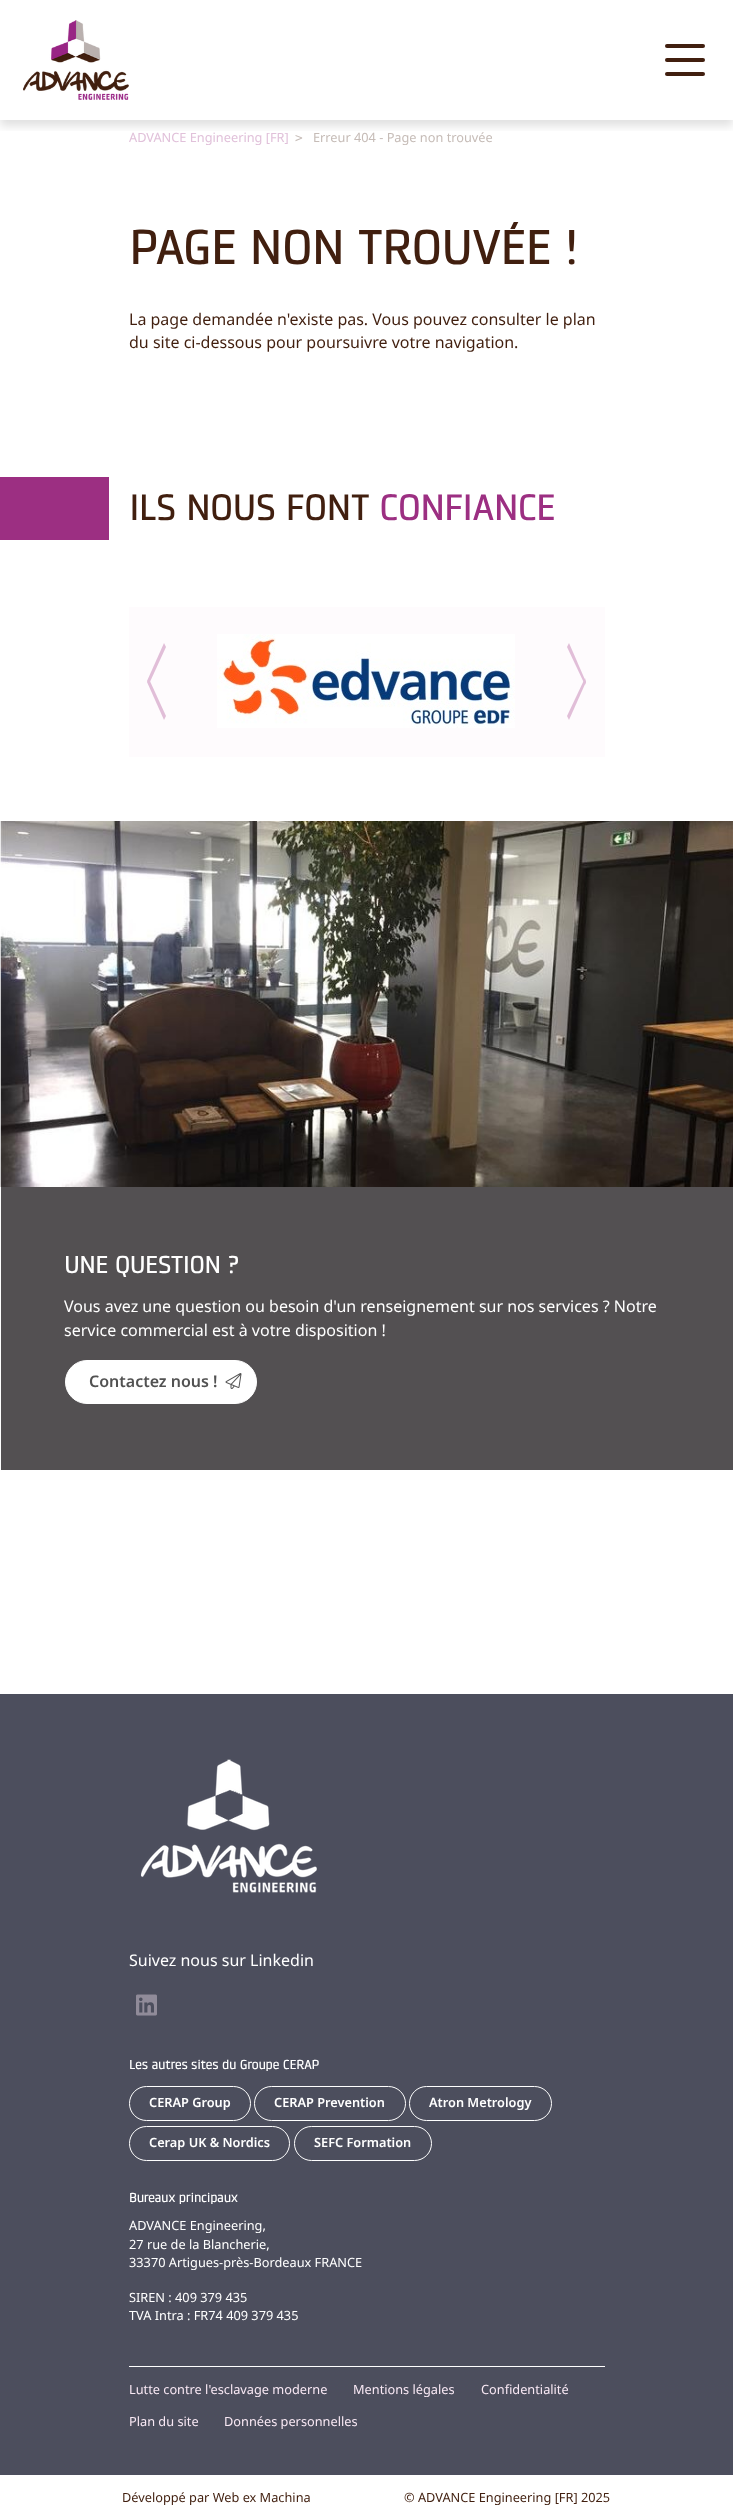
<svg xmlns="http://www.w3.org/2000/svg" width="733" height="2519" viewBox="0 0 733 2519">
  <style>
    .t1 { font: 12.75px Noto Sans; fill: #e1c1da; }
    .t2 { font: 12.75px DejaVu Sans Mono; fill: #c6bcb7; }
    .t3 { font: 12.75px Noto Sans; fill: #c6bcb7; }
    .t4 { font: bold 48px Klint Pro; fill: #411f0f; }
    .t5 { font: 16px Noto Sans; fill: #411f0f; }
    .t6 { font: bold 36px Klint Pro; fill: #411f0f; }
    .t7 { font: bold 36px Klint Pro; fill: #9c2f82; }
    .t8 { font: bold 24px Klint Pro; fill: #fff; }
    .t9 { font: 16px Noto Sans; fill: #fff; }
    .t10 { font: 600 16px Noto Sans; fill: #525252; }
    .t11 { font: bold 12.75px Klint Pro; fill: #fff; }
    .t12 { font: 600 12.75px Noto Sans; fill: #fff; }
    .t13 { font: 12.75px Noto Sans; fill: #fff; }
    .t14 { font: 12.75px Noto Sans; fill: #f8e8f4; }
    .t15 { font: 12.75px Noto Sans; fill: #411f0f; }
  </style>
  <defs>
    <clipPath id="clip1"><rect x="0" y="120" width="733" height="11"/></clipPath>
  </defs>
  <rect width="100%" height="100%" fill="#fff"/>
  <g clip-path="url(#clip1)">
    <rect x="0" y="6" width="733" height="120" fill="#0000001f" filter="blur(5px)"/>
  </g>
  <image x="23" y="20" width="106" height="80" href="images/1.png"/>
  <rect x="665" y="44" width="40" height="4" rx="2" fill="#411f0f"/>
  <rect x="665" y="58" width="40" height="4" rx="2" fill="#411f0f"/>
  <rect x="665" y="72" width="40" height="4" rx="2" fill="#411f0f"/>
  <text x="129" y="142" class="t1">ADVANCE Engineering [FR]</text>
  <text x="295" y="142" class="t2">&gt;</text>
  <text x="313" y="142" class="t3">Erreur 404 - Page non trouvée</text>
  <text x="129" y="264" class="t4">PAGE NON TROUVÉE !</text>
  <text x="129" y="325" class="t5">La page demandée n'existe pas. Vous pouvez consulter le plan</text>
  <text x="129" y="348" class="t5">du site ci-dessous pour poursuivre votre navigation.</text>
  <rect x="0" y="477" width="109" height="63" fill="#9c2f82"/>
  <text x="129" y="520" class="t6">ILS NOUS FONT</text>
  <text x="379" y="520" class="t7">CONFIANCE</text>
  <rect x="129" y="607" width="476" height="150" fill="#fefbfd"/>
  <image x="217" y="634" width="298" height="94" href="images/2.png"/>
  <path d="M166 716L164 720L147 682L149 679Z" fill="#e1bed8"/>
  <path d="M166 647L149 684L147 681L164 643Z" fill="#e1bed8"/>
  <path d="M586 682L569 720L567 716L585 678Z" fill="#e1bed8"/>
  <path d="M586 682L585 685L567 647L569 643Z" fill="#e1bed8"/>
  <image x="0" y="821" width="733" height="366" href="images/3.png"/>
  <rect x="1" y="1187" width="732" height="283" fill="#535052"/>
  <text x="64" y="1273" class="t8">UNE QUESTION ?</text>
  <text x="64" y="1312" class="t9">Vous avez une question ou besoin d'un renseignement sur nos services ? Notre</text>
  <text x="64" y="1336" class="t9">service commercial est à votre disposition !</text>
  <rect x="65.5" y="1360.5" width="191" height="43" rx="21.5" fill="#fff" stroke="#fff"/>
  <text x="89" y="1387" class="t10">Contactez nous !</text>
  <image x="225" y="1373" width="17" height="16" href="images/4.png"/>
  <rect x="0" y="1694" width="733" height="781" fill="#4c4e5d"/>
  <image x="140" y="1759" width="177" height="134" href="images/5.png"/>
  <text x="129" y="1966" class="t9">Suivez nous sur Linkedin</text>
  <image x="136" y="1994" width="21" height="22" href="images/6.png"/>
  <text x="129" y="2069" class="t11">Les autres sites du Groupe CERAP</text>
  <rect x="129.5" y="2086.5" width="121" height="34" rx="17" fill="none" stroke="#fff"/>
  <text x="149" y="2107" class="t12">CERAP Group</text>
  <rect x="254.5" y="2086.5" width="151" height="34" rx="17" fill="none" stroke="#fff"/>
  <text x="274" y="2107" class="t12">CERAP Prevention</text>
  <rect x="409.5" y="2086.5" width="142" height="34" rx="17" fill="none" stroke="#fff"/>
  <text x="429" y="2107" class="t12">Atron Metrology</text>
  <rect x="129.5" y="2126.5" width="160" height="34" rx="17" fill="none" stroke="#fff"/>
  <text x="149" y="2147" class="t12">Cerap UK &amp; Nordics</text>
  <rect x="294.5" y="2126.5" width="137" height="34" rx="17" fill="none" stroke="#fff"/>
  <text x="314" y="2147" class="t12">SEFC Formation</text>
  <text x="129" y="2202" class="t11">Bureaux principaux</text>
  <text x="129" y="2230" class="t13">ADVANCE Engineering,</text>
  <text x="129" y="2249" class="t13">27 rue de la Blancherie,</text>
  <text x="129" y="2267" class="t13">33370 Artigues-près-Bordeaux FRANCE</text>
  <text x="129" y="2302" class="t13">SIREN : 409 379 435</text>
  <text x="129" y="2320" class="t13">TVA Intra : FR74 409 379 435</text>
  <rect x="129" y="2366" width="476" height="1" fill="#fff"/>
  <text x="129" y="2394" class="t14">Lutte contre l'esclavage moderne</text>
  <text x="353" y="2394" class="t14">Mentions légales</text>
  <text x="481" y="2394" class="t14">Confidentialité</text>
  <text x="129" y="2426" class="t14">Plan du site</text>
  <text x="224" y="2426" class="t14">Données personnelles</text>
  <text x="122" y="2502" class="t15">Développé par Web ex Machina</text>
  <text x="404" y="2502" class="t15">© ADVANCE Engineering [FR] 2025</text>
</svg>
